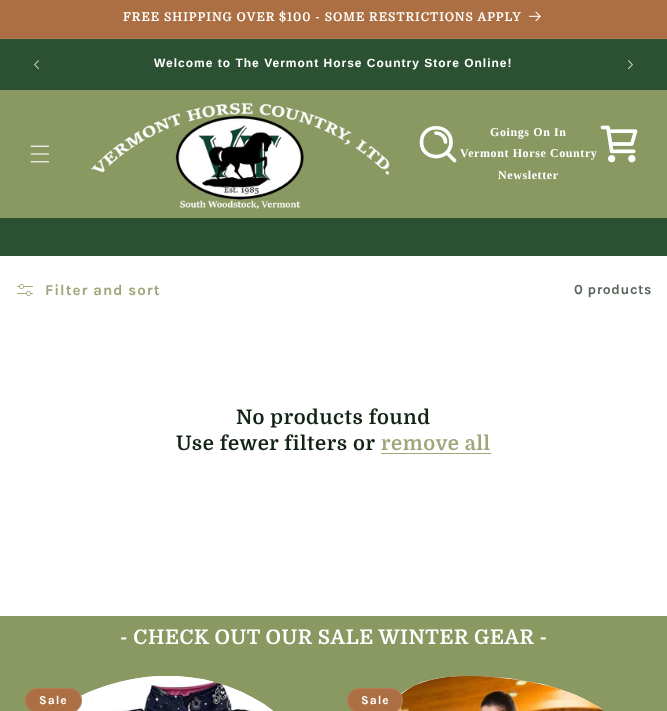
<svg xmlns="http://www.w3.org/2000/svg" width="667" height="711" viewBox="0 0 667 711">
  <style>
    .t1 { font: bold 12px Domine; letter-spacing: 1px; fill: #fff; }
    .t2 { font: bold 12px Liberation Sans; letter-spacing: 1px; fill: #fff; }
    .t3 { font: bold 12px Liberation Serif; letter-spacing: 0.6px; fill: #fff; }
    .t4 { font: bold 15px Karla; letter-spacing: 1px; fill: #9ca87a; }
    .t5 { font: bold 14px Karla; letter-spacing: 0.6px; fill: #5a655c; }
    .t6 { font: bold 20px Domine; letter-spacing: 0.6px; fill: #132316; }
    .t7 { font: bold 20px Domine; letter-spacing: 0.6px; fill: #9ca87a; }
    .t8 { font: bold 20px Domine; letter-spacing: 0.6px; fill: #fff; }
    .t9 { font: bold 12px Karla; letter-spacing: 1px; fill: #fff; }
  </style>
  <rect width="100%" height="100%" fill="#8a9962"/>
  <rect x="0" y="0" width="667" height="38" fill="#ac6f43"/>
  <rect x="0" y="38" width="667" height="1" fill="#b37b52"/>
  <text x="123" y="21" class="t1">FREE SHIPPING OVER $100 - SOME RESTRICTIONS APPLY</text>
  <image x="529" y="11" width="12" height="11" href="images/1.png"/>
  <rect x="0" y="39" width="667" height="51" fill="#2b5132"/>
  <image x="34" y="60" width="5" height="9" href="images/2.png"/>
  <text x="154" y="67" class="t2">Welcome to The Vermont Horse Country Store Online!</text>
  <image x="628" y="60" width="5" height="9" href="images/3.png"/>
  <image x="30" y="145" width="20" height="18" href="images/4.png"/>
  <image x="91" y="102" width="299" height="108" href="images/5.png"/>
  <path d="M436 133C441 133 445.5 137 445.5 142M446.5 152.5L454.5 160.5M451 142C451 161.5 421.5 161.5 421.5 142C421.5 123 451 123 451 142Z" fill="none" stroke="#fff" stroke-width="3.7" stroke-linecap="round" stroke-linejoin="round"/>
  <text x="490" y="136" class="t3">Goings On In</text>
  <text x="460" y="157" class="t3">Vermont Horse Country</text>
  <text x="498" y="179" class="t3">Newsletter</text>
  <image x="600" y="125" width="38" height="38" href="images/6.png"/>
  <rect x="0" y="218" width="667" height="38" fill="#2b5132"/>
  <rect x="0" y="256" width="667" height="360" fill="#fff"/>
  <image x="17" y="284" width="16" height="12" href="images/7.png"/>
  <text x="45" y="295" class="t4">Filter and sort</text>
  <text x="574" y="294" class="t5">0 products</text>
  <text x="236" y="424" class="t6">No products found</text>
  <text x="176" y="450" class="t6">Use fewer filters or</text>
  <text x="381" y="450" class="t7">remove all</text>
  <rect x="381" y="453" width="110" height="1" fill="#9ca87a"/>
  <text x="120" y="644" class="t8">- CHECK OUT OUR SALE WINTER GEAR -</text>
  <path d="M323 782L317 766L314 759L310 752L300 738L295 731L284 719L277 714L264 704L257 700L242 692L227 686L211 681L203 679L187 677L176 676H158L145 677L129 680L105 686L89 692L74 699L60 708L53 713L41 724L36 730L31 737L26 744L22 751L19 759L17 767L16 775L15 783V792L17 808L21 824L27 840L38 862L47 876L61 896L72 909L89 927L108 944L121 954L142 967L157 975L172 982L180 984L196 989L212 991H226L237 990L245 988L253 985L261 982L268 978L275 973L281 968L292 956L302 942L309 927L316 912L321 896L325 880L329 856L330 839V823L329 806L325 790Z" fill="#fff"/>
  <image x="76" y="676" width="198" height="35" href="images/8.png"/>
  <rect x="25" y="688" width="57" height="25" rx="12.5" fill="#ac6f43"/>
  <rect x="25.5" y="688.5" width="56" height="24" rx="12" fill="none" stroke="#ffffff1a"/>
  <text x="39" y="704" class="t9">Sale</text>
  <path d="M606 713L599 707L584 699L576 695L559 689L543 684L525 681L508 678L491 677L479 676H459L439 678L430 680L422 682L414 686L406 690L399 695L393 702L389 709L385 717L381 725L376 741L365 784L359 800L344 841L339 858L338 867L337 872V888L339 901L342 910L345 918L349 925L354 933L364 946L377 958L384 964L392 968L407 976L424 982L441 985L458 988L475 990L501 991H538L554 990L571 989L588 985L605 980L613 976L620 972L627 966L633 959L637 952L641 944L644 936L648 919L650 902L651 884L652 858L651 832L650 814L647 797L644 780L639 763L632 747L628 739L623 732L618 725L612 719Z" fill="#fff"/>
  <image x="397" y="676" width="207" height="35" href="images/9.png"/>
  <rect x="347" y="688" width="56" height="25" rx="12.5" fill="#ac6f43"/>
  <rect x="347.5" y="688.5" width="55" height="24" rx="12" fill="none" stroke="#ffffff1a"/>
  <text x="361" y="704" class="t9">Sale</text>
</svg>
